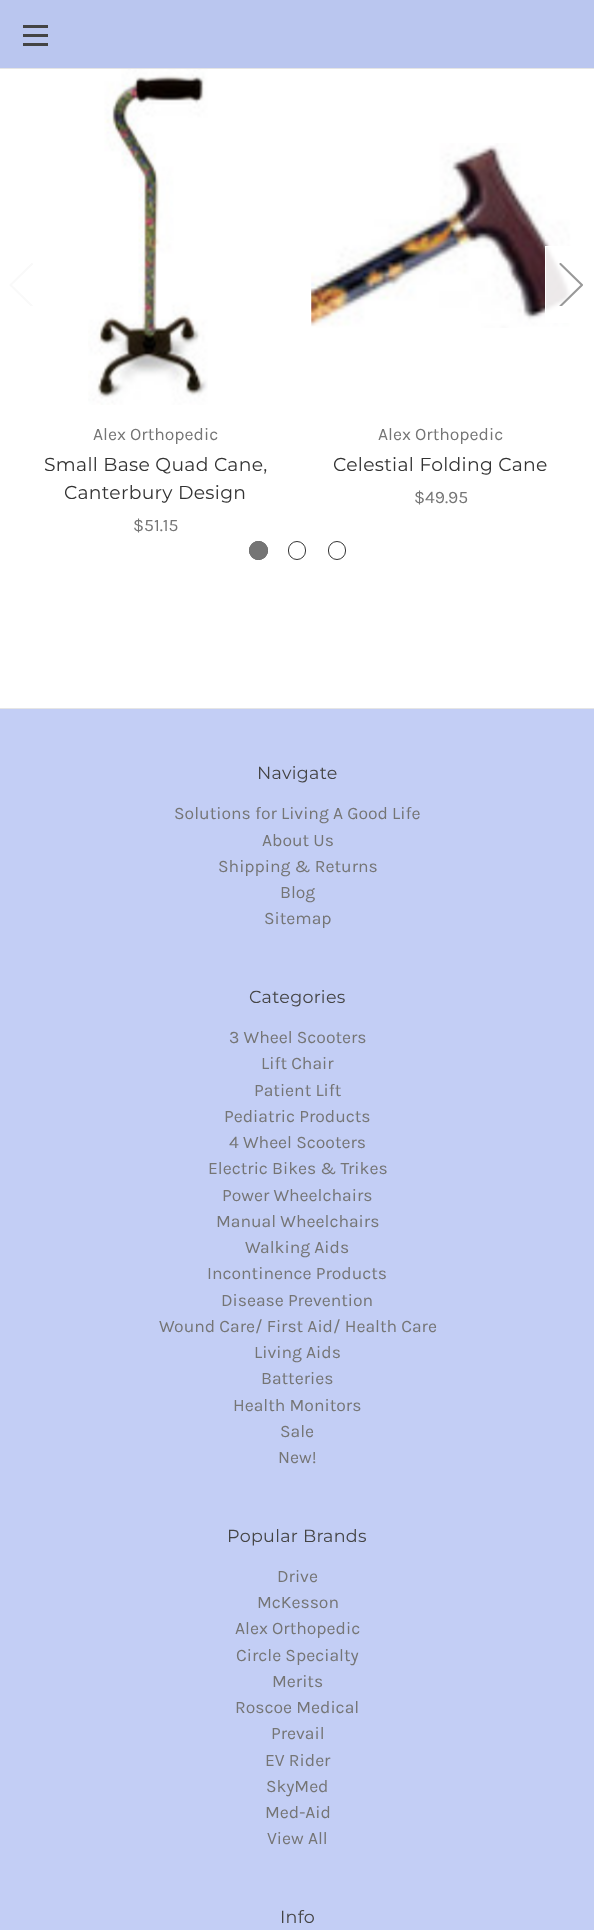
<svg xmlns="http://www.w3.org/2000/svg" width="594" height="1930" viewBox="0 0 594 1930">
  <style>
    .t1 { font: 17.5px Karla; fill: #757575; }
    .t2 { font: 18.75px Montserrat; letter-spacing: 0.3px; fill: #333; }
    .t3 { font: 17.5px Montserrat; letter-spacing: 0.3px; fill: #444; }
  </style>
  <defs>
    <clipPath id="clip1"><rect x="9" y="263" width="24" height="43"/></clipPath>
    <clipPath id="clip2"><rect x="559" y="263" width="25" height="43"/></clipPath>
  </defs>
  <rect width="100%" height="100%" fill="#fff"/>
  <rect x="0" y="0" width="594" height="68" fill="#bac6ef"/>
  <rect x="0" y="68" width="594" height="1" fill="#e5e5e5"/>
  <rect x="23" y="34" width="25" height="3" fill="#444"/>
  <rect x="23" y="25" width="25" height="3" fill="#444"/>
  <rect x="23" y="43" width="25" height="3" fill="#444"/>
  <g clip-path="url(#clip1)">
    <path d="M32 264L10.5 285L32 306" fill="none" stroke="#f9f9f9" stroke-width="2.1" stroke-linecap="round" stroke-linejoin="round"/>
  </g>
  <image x="311" y="143" width="260" height="185" href="images/2.png"/>
  <rect x="546" y="247" width="25" height="75" fill="#ffffffe6"/>
  <rect x="545.5" y="246.5" width="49" height="76" fill="none" stroke="#fff"/>
  <g clip-path="url(#clip2)">
    <path d="M560.5 264L582 285L560.5 306" fill="none" stroke="#999" stroke-width="2.1" stroke-linecap="round" stroke-linejoin="round"/>
  </g>
  <image x="88" y="69" width="120" height="336" href="images/1.png"/>
  <text x="93" y="440" class="t1">Alex Orthopedic</text>
  <text x="44" y="471" class="t2">Small Base Quad Cane,</text>
  <text x="64" y="499" class="t2">Canterbury Design</text>
  <text x="133" y="531" class="t1">$51.15</text>
  <text x="378" y="440" class="t1">Alex Orthopedic</text>
  <text x="333" y="471" class="t2">Celestial Folding Cane</text>
  <text x="414" y="503" class="t1">$49.95</text>
  <circle cx="258.5" cy="550.5" r="9" fill="none" stroke="#333"/>
  <circle cx="258.5" cy="550.5" r="9.5" fill="#757575"/>
  <rect x="288.5" y="541.5" width="17" height="18" rx="8.5" fill="none" stroke="#333"/>
  <rect x="328.5" y="541.5" width="17" height="18" rx="8.5" fill="none" stroke="#333"/>
  <rect x="0" y="709" width="594" height="1221" fill="#c3cef5"/>
  <rect x="0" y="708" width="594" height="1" fill="#e5e5e5"/>
  <text x="257" y="779" class="t3">Navigate</text>
  <text x="174" y="819" class="t1">Solutions for Living A Good Life</text>
  <text x="262" y="846" class="t1">About Us</text>
  <text x="218" y="872" class="t1">Shipping &amp; Returns</text>
  <text x="280" y="898" class="t1">Blog</text>
  <text x="264" y="924" class="t1">Sitemap</text>
  <text x="249" y="1003" class="t3">Categories</text>
  <text x="229" y="1043" class="t1">3 Wheel Scooters</text>
  <text x="261" y="1069" class="t1">Lift Chair</text>
  <text x="254" y="1096" class="t1">Patient Lift</text>
  <text x="224" y="1122" class="t1">Pediatric Products</text>
  <text x="229" y="1148" class="t1">4 Wheel Scooters</text>
  <text x="208" y="1174" class="t1">Electric Bikes &amp; Trikes</text>
  <text x="222" y="1201" class="t1">Power Wheelchairs</text>
  <text x="216" y="1227" class="t1">Manual Wheelchairs</text>
  <text x="245" y="1253" class="t1">Walking Aids</text>
  <text x="207" y="1279" class="t1">Incontinence Products</text>
  <text x="221" y="1306" class="t1">Disease Prevention</text>
  <text x="159" y="1332" class="t1">Wound Care/ First Aid/ Health Care</text>
  <text x="254" y="1358" class="t1">Living Aids</text>
  <text x="261" y="1384" class="t1">Batteries</text>
  <text x="233" y="1411" class="t1">Health Monitors</text>
  <text x="280" y="1437" class="t1">Sale</text>
  <text x="278" y="1463" class="t1">New!</text>
  <text x="227" y="1542" class="t3">Popular Brands</text>
  <text x="277" y="1582" class="t1">Drive</text>
  <text x="257" y="1608" class="t1">McKesson</text>
  <text x="235" y="1634" class="t1">Alex Orthopedic</text>
  <text x="236" y="1661" class="t1">Circle Specialty</text>
  <text x="272" y="1687" class="t1">Merits</text>
  <text x="235" y="1713" class="t1">Roscoe Medical</text>
  <text x="271" y="1739" class="t1">Prevail</text>
  <text x="265" y="1766" class="t1">EV Rider</text>
  <text x="266" y="1792" class="t1">SkyMed</text>
  <text x="265" y="1818" class="t1">Med-Aid</text>
  <text x="267" y="1844" class="t1">View All</text>
  <text x="280" y="1923" class="t3">Info</text>
</svg>
